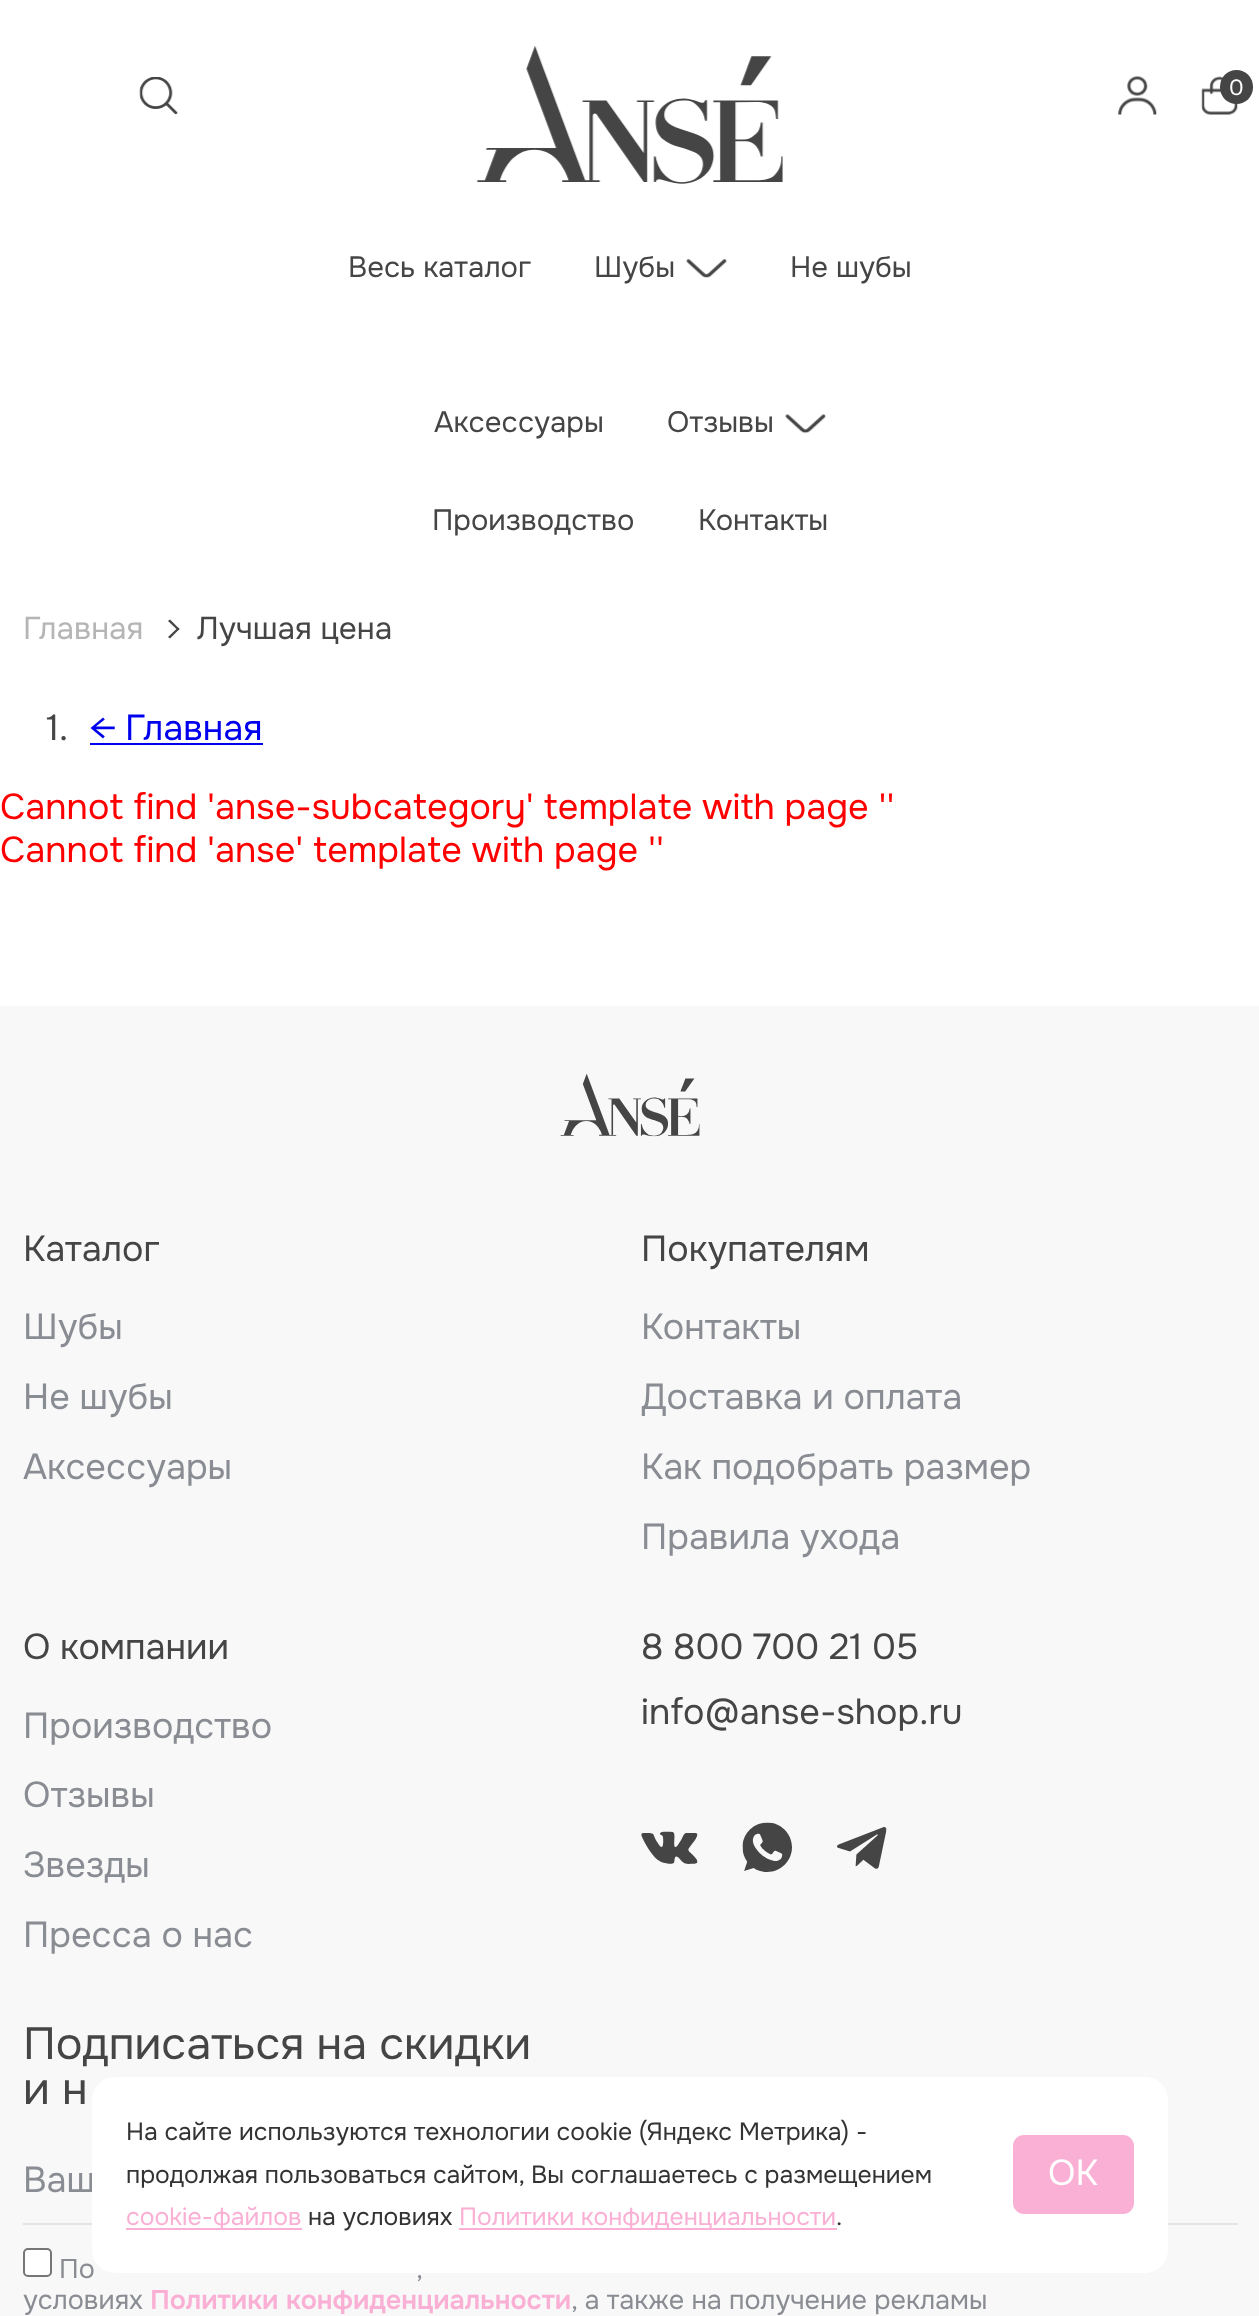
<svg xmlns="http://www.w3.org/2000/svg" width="1259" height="2316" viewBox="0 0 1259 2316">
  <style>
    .t1 { font: 22px Onest; fill: #fff; }
    .t2 { font: 29.25px Onest; fill: #454545; }
    .t3 { font: 31.5px Onest; fill: #b5b5b5; }
    .t4 { font: 31.5px Onest; fill: #454545; }
    .t5 { font: 36px Onest; fill: #454545; }
    .t6 { font: 36px Onest; fill: #00e; }
    .t7 { font: 36px Onest; fill: #f00; }
    .t8 { font: 36px Onest; fill: #898c92; }
    .t9 { font: 45px Onest; fill: #454545; }
    .t10 { font: 27px Onest; fill: #898c92; }
    .t11 { font: 600 27px Onest; fill: #faafd4; }
    .t12 { font: 24.75px Onest; fill: #333; }
    .t13 { font: 24.75px Onest; fill: #faafd4; }
    .t14 { font: 36px Onest; fill: #fff; }
  </style>
  <rect width="100%" height="100%" fill="#fff"/>
  <image x="139" y="77" width="39" height="38" href="images/1.png"/>
  <image x="477" y="46" width="306" height="138" href="images/2.png"/>
  <image x="1118" y="76" width="39" height="39" href="images/3.png"/>
  <image x="1201" y="76" width="37" height="39" href="images/4.png"/>
  <rect x="1220" y="70" width="33" height="34" rx="16.5" fill="#454545"/>
  <text x="1229" y="95" class="t1">0</text>
  <text x="348" y="277" class="t2">Весь каталог</text>
  <text x="594" y="277" class="t2">Шубы</text>
  <image x="686" y="259" width="41" height="19" href="images/5.png"/>
  <text x="790" y="277" class="t2">Не шубы</text>
  <text x="434" y="432" class="t2">Аксессуары</text>
  <text x="667" y="432" class="t2">Отзывы</text>
  <image x="785" y="414" width="41" height="20" href="images/6.png"/>
  <text x="432" y="530" class="t2">Производство</text>
  <text x="698" y="530" class="t2">Контакты</text>
  <text x="23" y="639" class="t3">Главная</text>
  <path d="M170 619.5L179.5 629L178 630.5L168 621Z" fill="#454545"/>
  <path d="M178 627.5L179.5 629L170 638.5L168 637Z" fill="#454545"/>
  <text x="197" y="639" class="t4">Лучшая цена</text>
  <text x="46" y="740" class="t5">1.</text>
  <text x="90" y="740" class="t6">← Главная</text>
  <rect x="90" y="743" width="173" height="2" fill="#00e"/>
  <text x="0" y="819" class="t7">Cannot find 'anse-subcategory' template with page ''</text>
  <text x="0" y="862" class="t7">Cannot find 'anse' template with page ''</text>
  <rect x="0" y="1006" width="1259" height="1310" fill="#f8f8f8"/>
  <image x="560" y="1073" width="140" height="64" href="images/7.png"/>
  <text x="23" y="1261" class="t5">Каталог</text>
  <text x="23" y="1339" class="t8">Шубы</text>
  <text x="23" y="1409" class="t8">Не шубы</text>
  <text x="23" y="1479" class="t8">Аксессуары</text>
  <text x="641" y="1261" class="t5">Покупателям</text>
  <text x="641" y="1339" class="t8">Контакты</text>
  <text x="641" y="1409" class="t8">Доставка и оплата</text>
  <text x="641" y="1479" class="t8">Как подобрать размер</text>
  <text x="641" y="1549" class="t8">Правила ухода</text>
  <text x="23" y="1659" class="t5">О компании</text>
  <text x="23" y="1738" class="t8">Производство</text>
  <text x="23" y="1807" class="t8">Отзывы</text>
  <text x="23" y="1877" class="t8">Звезды</text>
  <text x="23" y="1947" class="t8">Пресса о нас</text>
  <text x="641" y="1659" class="t5">8 800 700 21 05</text>
  <text x="641" y="1724" class="t5">info@anse-shop.ru</text>
  <image x="641" y="1831" width="57" height="33" href="images/8.png"/>
  <image x="742" y="1822" width="50" height="50" href="images/9.png"/>
  <image x="837" y="1827" width="50" height="42" href="images/10.png"/>
  <text x="23" y="2059" class="t9">Подписаться на скидки</text>
  <text x="23" y="2104" class="t9">и н</text>
  <rect x="23" y="2223" width="1215" height="2" fill="#e4e4e4"/>
  <text x="23" y="2192" class="t8">Ваш</text>
  <rect x="24" y="2249" width="27" height="27" rx="4" fill="#fff" stroke="#767676" stroke-width="2"/>
  <text x="59" y="2278" class="t10">По</text>
  <text x="416" y="2278" class="t10">,</text>
  <text x="23" y="2309" class="t10">условиях</text>
  <text x="150" y="2309" class="t11">Политики конфиденциальности</text>
  <text x="571" y="2309" class="t10">, а также на получение рекламы</text>
  <rect x="92" y="2077" width="1076" height="196" rx="23" fill="#fff"/>
  <text x="126" y="2140" class="t12">На сайте используются технологии cookie (Яндекс Метрика) -</text>
  <text x="126" y="2183" class="t12">продолжая пользоваться сайтом, Вы соглашаетесь с размещением</text>
  <rect x="126" y="2228" width="176" height="2" fill="#faafd4"/>
  <text x="126" y="2225" class="t13">cookie-файлов</text>
  <text x="308" y="2225" class="t12">на условиях</text>
  <rect x="459" y="2228" width="378" height="2" fill="#faafd4"/>
  <text x="459" y="2225" class="t13">Политики конфиденциальности</text>
  <text x="836" y="2225" class="t12">.</text>
  <rect x="1013" y="2135" width="121" height="79" rx="11" fill="#faafd4"/>
  <text x="1048" y="2185" class="t14">OK</text>
</svg>
